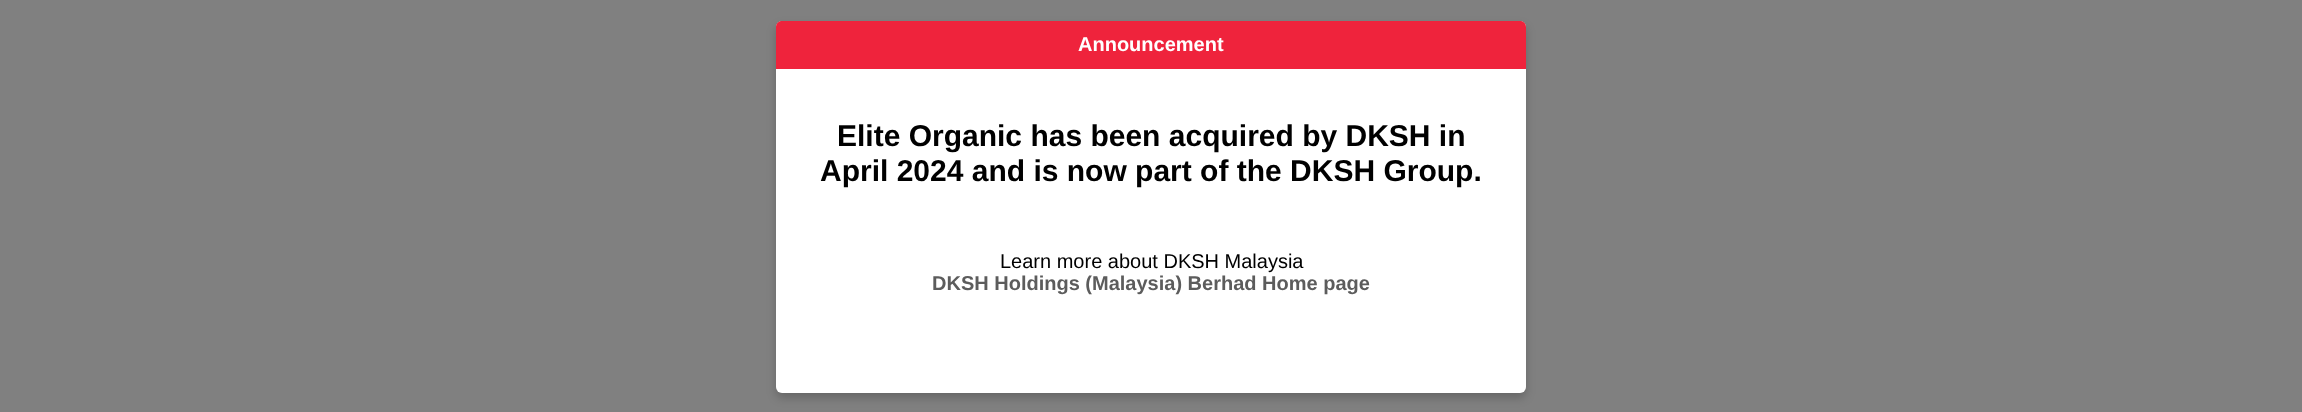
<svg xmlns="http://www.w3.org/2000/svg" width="2302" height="412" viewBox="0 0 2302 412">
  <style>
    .t1 { font: bold 20px Liberation Sans; fill: #fff; }
    .t2 { font: bold 30px Liberation Sans; fill: #000; }
    .t3 { font: 20px Liberation Sans; fill: #000; }
    .t4 { font: bold 20px Liberation Sans; fill: #5c5c5c; }
  </style>
  <rect width="100%" height="100%" fill="#808080"/>
  <rect x="776" y="26" width="750" height="372" rx="6" fill="#00000033" filter="blur(5px)"/>
  <rect x="776" y="21" width="750" height="372" rx="6" fill="#fff"/>
  <path d="M782 21H1520C1523.5 21 1526 23.5 1526 27V69H776V27C776 23.5 778.5 21 782 21Z" fill="#ef233c"/>
  <text x="1078" y="51" class="t1">Announcement</text>
  <text x="837" y="146" class="t2">Elite Organic has been acquired by DKSH in</text>
  <text x="820" y="181" class="t2">April 2024 and is now part of the DKSH Group.</text>
  <text x="1000" y="268" class="t3">Learn more about DKSH Malaysia</text>
  <text x="932" y="290" class="t4">DKSH Holdings (Malaysia) Berhad Home page</text>
</svg>
